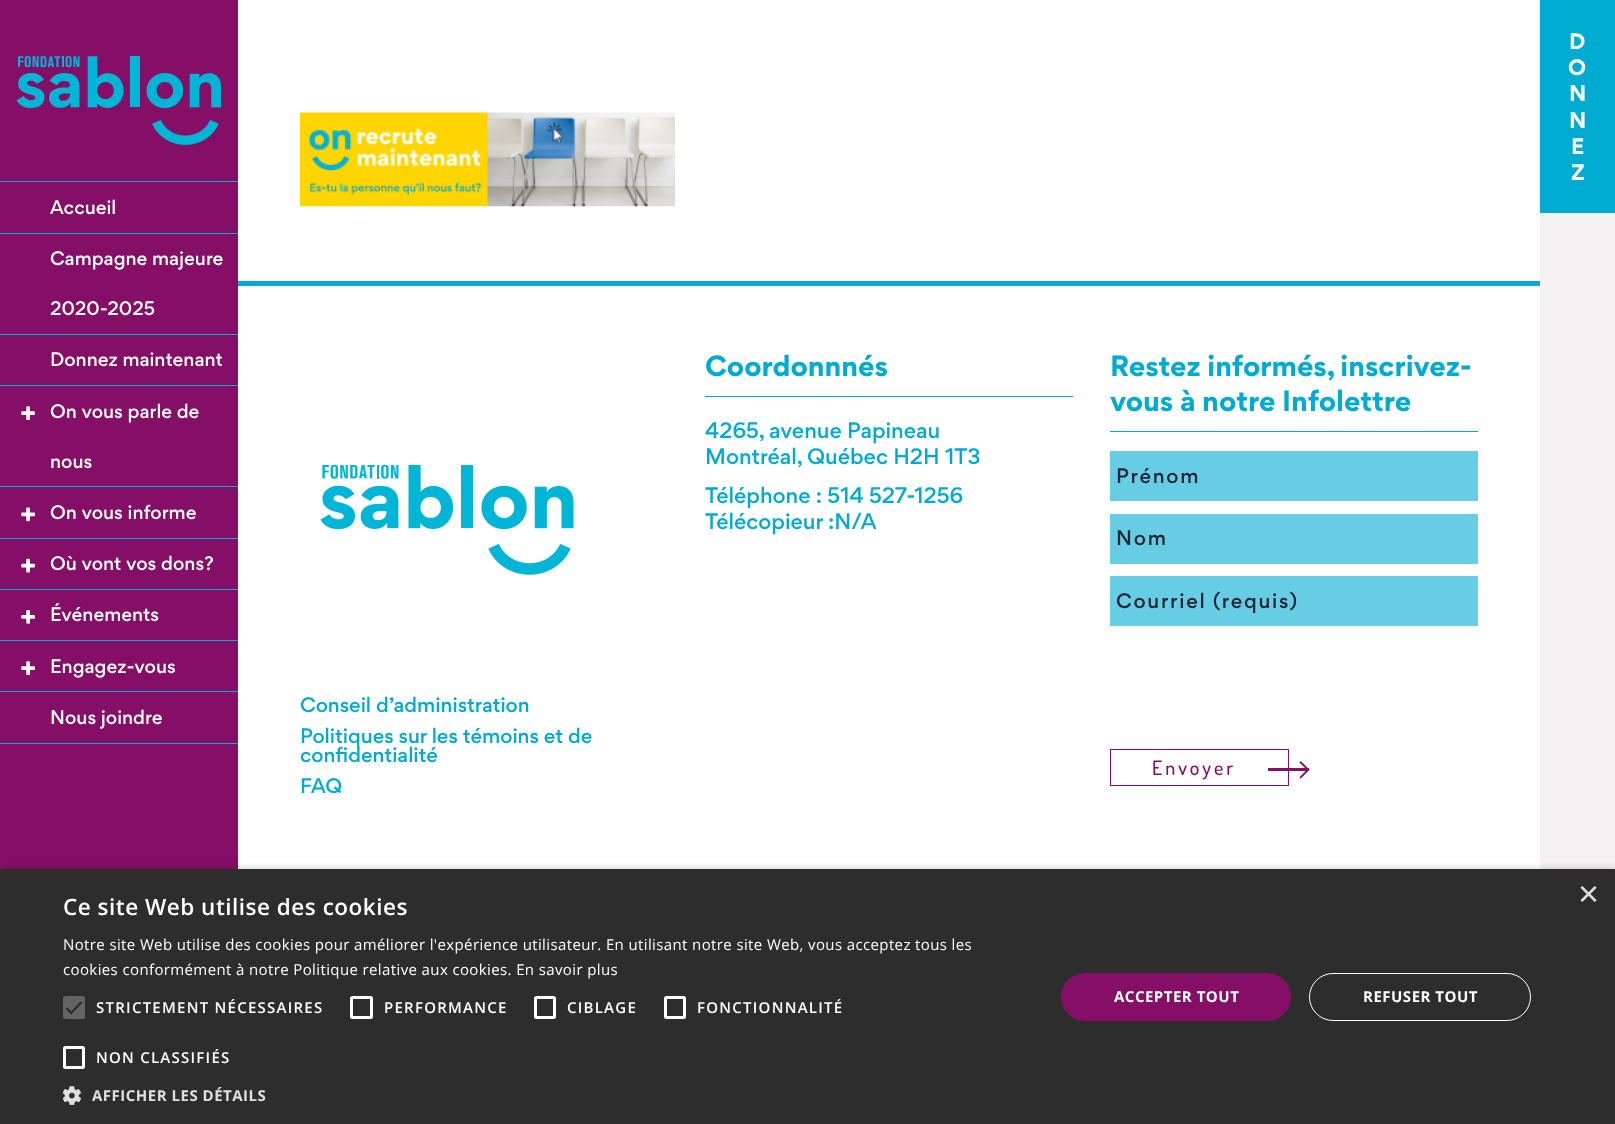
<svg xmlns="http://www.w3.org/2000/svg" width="1615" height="1124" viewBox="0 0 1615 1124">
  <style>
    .t1 { font: bold 20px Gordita; fill: #fff; }
    .t2 { font: 500 17.5px Gordita; fill: #fff; }
    .t3 { font: 500 18.75px Gordita; fill: #00abd2; }
    .t4 { font: bold 26.25px Gordita; fill: #00abd2; }
    .t5 { font: 500 20px Gordita; fill: #00abd2; }
    .t6 { font: 500 18.75px Gordita; letter-spacing: 1.75px; fill: #242534; }
    .t7 { font: 500 20px Dosis; letter-spacing: 3px; fill: #850f66; }
    .t8 { font: 35px Anonymous Pro; letter-spacing: 3px; fill: #850f66; }
    .t9 { font: 36px Liberation Sans; fill: #e0e0e0; }
    .t10 { font: 600 22.5px Open Sans; letter-spacing: 0.5px; fill: #fff; }
    .t11 { font: 15px Open Sans; letter-spacing: 0.38px; fill: #fff; }
    .t12 { font: 600 15px Open Sans; letter-spacing: 1.25px; fill: #fff; }
    .t13 { font: bold 15px Open Sans; letter-spacing: 0.5px; fill: #e0e0e0; }
    .t14 { font: bold 15px Open Sans; letter-spacing: 0.5px; fill: #fff; }
  </style>
  <rect width="100%" height="100%" fill="#fff"/>
  <image x="300" y="112" width="375" height="95" href="images/1.png"/>
  <rect x="1540" y="213" width="75" height="656" fill="#f4f2f2"/>
  <rect x="1540" y="0" width="75" height="213" fill="#00abd2"/>
  <text x="1569" y="49" class="t1">D</text>
  <text x="1568" y="75" class="t1">O</text>
  <text x="1569" y="101" class="t1">N</text>
  <text x="1569" y="128" class="t1">N</text>
  <text x="1571" y="154" class="t1">E</text>
  <text x="1571" y="180" class="t1">Z</text>
  <rect x="0" y="0" width="238" height="869" fill="#850f66"/>
  <image x="16" y="56" width="205" height="89" href="images/2.png"/>
  <rect x="0" y="181" width="238" height="1" fill="#00abd2"/>
  <rect x="0" y="233" width="238" height="1" fill="#00abd2"/>
  <text x="50" y="214" class="t2">Accueil</text>
  <rect x="0" y="334" width="238" height="1" fill="#00abd2"/>
  <text x="50" y="265" class="t2">Campagne majeure</text>
  <text x="50" y="315" class="t2">2020-2025</text>
  <rect x="0" y="385" width="238" height="1" fill="#00abd2"/>
  <text x="50" y="366" class="t2">Donnez maintenant</text>
  <rect x="0" y="486" width="238" height="1" fill="#00abd2"/>
  <image x="21" y="406" width="14" height="14" href="images/3.png"/>
  <text x="50" y="418" class="t2">On vous parle de</text>
  <text x="50" y="468" class="t2">nous</text>
  <rect x="0" y="538" width="238" height="1" fill="#00abd2"/>
  <image x="21" y="507" width="14" height="15" href="images/4.png"/>
  <text x="50" y="519" class="t2">On vous informe</text>
  <rect x="0" y="589" width="238" height="1" fill="#00abd2"/>
  <image x="21" y="558" width="14" height="15" href="images/5.png"/>
  <text x="50" y="570" class="t2">Où vont vos dons?</text>
  <rect x="0" y="640" width="238" height="1" fill="#00abd2"/>
  <image x="21" y="610" width="14" height="14" href="images/6.png"/>
  <text x="50" y="621" class="t2">Événements</text>
  <rect x="0" y="691" width="238" height="1" fill="#00abd2"/>
  <image x="21" y="661" width="14" height="14" href="images/3.png"/>
  <text x="50" y="673" class="t2">Engagez-vous</text>
  <rect x="0" y="743" width="238" height="1" fill="#00abd2"/>
  <text x="50" y="724" class="t2">Nous joindre</text>
  <rect x="238" y="281" width="1302" height="5" fill="#00abd2"/>
  <image x="320" y="464" width="254" height="111" href="images/7.png"/>
  <text x="300" y="712" class="t3">Conseil d’administration</text>
  <text x="300" y="743" class="t3">Politiques sur les témoins et de</text>
  <text x="300" y="762" class="t3">confidentialité</text>
  <text x="300" y="793" class="t3">FAQ</text>
  <rect x="705" y="396" width="368" height="1" fill="#00abd2"/>
  <text x="705" y="376" class="t4">Coordonnnés</text>
  <text x="705" y="438" class="t5">4265, avenue Papineau</text>
  <text x="705" y="464" class="t5">Montréal, Québec H2H 1T3</text>
  <text x="705" y="503" class="t5">Téléphone : 514 527-1256</text>
  <text x="705" y="529" class="t5">Télécopieur :N/A</text>
  <rect x="1110" y="431" width="368" height="1" fill="#00abd2"/>
  <text x="1110" y="376" class="t4">Restez informés, inscrivez-</text>
  <text x="1110" y="411" class="t4">vous à notre Infolettre</text>
  <rect x="1110" y="451" width="368" height="50" fill="#66cde4"/>
  <text x="1116" y="483" class="t6">Prénom</text>
  <rect x="1110" y="514" width="368" height="50" fill="#66cde4"/>
  <text x="1116" y="545" class="t6">Nom</text>
  <rect x="1110" y="576" width="368" height="50" fill="#66cde4"/>
  <text x="1116" y="608" class="t6">Courriel (requis)</text>
  <rect x="1110" y="749" width="179" height="1" fill="#850f66"/>
  <rect x="1110" y="749" width="1" height="37" fill="#850f66"/>
  <text x="1152" y="775" class="t7">Envoyer</text>
  <rect x="1288" y="749" width="1" height="37" fill="#850f66"/>
  <rect x="1110" y="785" width="179" height="1" fill="#850f66"/>
  <rect x="1268" y="768" width="41" height="3" fill="#850f66"/>
  <text x="1297" y="778" class="t8">&gt;</text>
  <rect x="1" y="871" width="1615" height="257" fill="#00000059" filter="blur(5px)"/>
  <rect x="0" y="869" width="1615" height="255" fill="#2d2d2d"/>
  <text x="1578" y="906" class="t9">×</text>
  <text x="63" y="915" class="t10">Ce site Web utilise des cookies</text>
  <text x="63" y="950" class="t11">Notre site Web utilise des cookies pour améliorer l'expérience utilisateur. En utilisant notre site Web, vous acceptez tous les</text>
  <text x="63" y="975" class="t11">cookies conformément à notre Politique relative aux cookies. En savoir plus</text>
  <rect x="63" y="996" width="22" height="23" rx="2.5" fill="#646464"/>
  <path d="M66.5 1008L71 1013L81.5 1002" fill="none" stroke="#2d2d2d" stroke-width="2.3"/>
  <text x="96" y="1013" class="t12">STRICTEMENT NÉCESSAIRES</text>
  <rect x="351.5" y="997.5" width="20" height="20" rx="1" fill="none" stroke="#fff" stroke-width="3"/>
  <text x="384" y="1013" class="t12">PERFORMANCE</text>
  <rect x="535.5" y="997.5" width="19" height="20" rx="1" fill="none" stroke="#fff" stroke-width="3"/>
  <text x="567" y="1013" class="t12">CIBLAGE</text>
  <rect x="665.5" y="997.5" width="19" height="20" rx="1" fill="none" stroke="#fff" stroke-width="3"/>
  <text x="697" y="1013" class="t12">FONCTIONNALITÉ</text>
  <rect x="64.5" y="1047.5" width="19" height="20" rx="1" fill="none" stroke="#fff" stroke-width="3"/>
  <text x="96" y="1063" class="t12">NON CLASSIFIÉS</text>
  <image x="63" y="1086" width="18" height="19" href="images/8.png"/>
  <text x="92" y="1101" class="t13">AFFICHER LES DÉTAILS</text>
  <rect x="1061" y="973" width="230" height="48" rx="24" fill="#850f66"/>
  <text x="1114" y="1002" class="t14">ACCEPTER TOUT</text>
  <rect x="1309.5" y="973.5" width="221" height="47" rx="23.5" fill="none" stroke="#fff"/>
  <text x="1363" y="1002" class="t14">REFUSER TOUT</text>
</svg>
